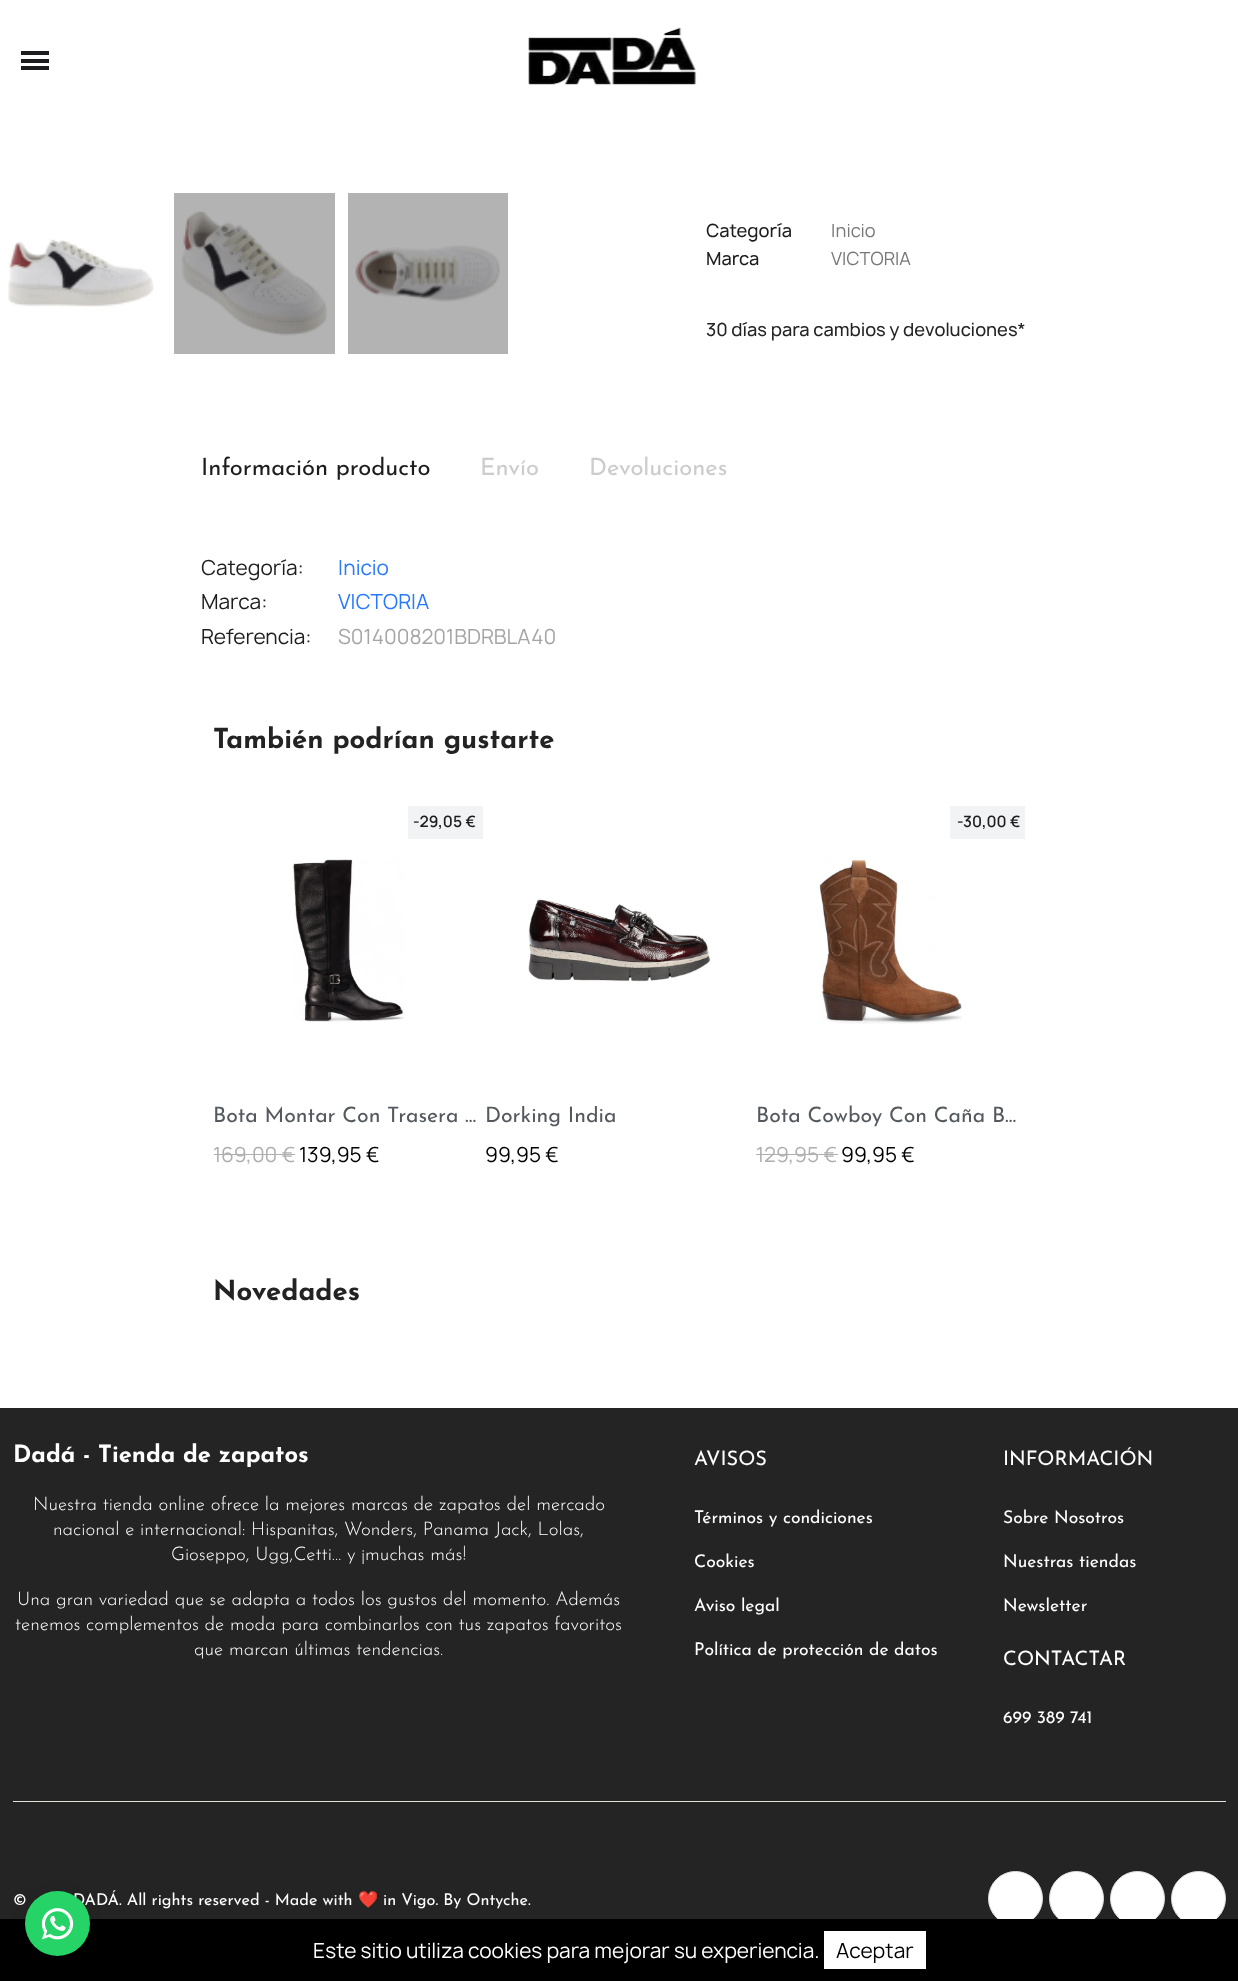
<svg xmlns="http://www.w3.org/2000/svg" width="1238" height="1981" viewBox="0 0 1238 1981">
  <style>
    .t1 { font: 500 17.5px Manrope; fill: #1d1d1f; }
    .t2 { font: 17.5px Manrope; fill: #777; }
    .t3 { font: 500 17.5px Manrope; fill: #232323; }
    .t4 { font: 23.75px Josefin Sans; fill: #1d1d1f; }
    .t5 { font: 23.75px Josefin Sans; fill: #ccc; }
    .t6 { font: 20px Manrope; fill: #1d1d1f; }
    .t7 { font: 20px Manrope; fill: #2879fe; }
    .t8 { font: 20px Manrope; fill: #a5a5a5; }
    .t9 { font: bold 27.5px Josefin Sans; fill: #232323; }
    .t10 { font: 600 15px Manrope; fill: #1d1d1f; }
    .t11 { font: 21.25px Josefin Sans; fill: #54595f; }
    .t12 { font: 20px Manrope; fill: #afafaf; }
    .t13 { font: 20px Manrope; fill: #000; }
    .t14 { font: bold 23.75px Josefin Sans; fill: #fff; }
    .t15 { font: 300 18.75px Josefin Sans; fill: #fff; }
    .t16 { font: 20px Josefin Sans; fill: #fff; }
    .t17 { font: 17.5px Josefin Sans; fill: #fff; }
    .t18 { font: 16.25px Josefin Sans; fill: #fff; }
    .t19 { font: 16.25px Noto Color Emoji; fill: #fff; }
    .t20 { font: 20px Manrope; fill: #fff; }
  </style>
  <defs>
    <clipPath id="clip1"><rect x="485" y="1106" width="269" height="24"/></clipPath>
  </defs>
  <rect width="100%" height="100%" fill="#fff"/>
  <rect x="348" y="193" width="160" height="161" fill="#b3b3b3"/>
  <rect x="174" y="193" width="161" height="161" fill="#b3b3b3"/>
  <rect x="21" y="59" width="28" height="4" fill="#1d1d1f"/>
  <rect x="21" y="51" width="28" height="4" fill="#1d1d1f"/>
  <rect x="21" y="66" width="28" height="4" fill="#1d1d1f"/>
  <image x="528" y="27" width="169" height="59" href="images/1.png"/>
  <image x="8" y="239" width="146" height="68" href="images/2.png"/>
  <image x="181" y="211" width="146" height="125" href="images/3.png"/>
  <image x="355" y="245" width="145" height="57" href="images/4.png"/>
  <text x="706" y="237" class="t1">Categoría</text>
  <text x="831" y="237" class="t2">Inicio</text>
  <text x="706" y="265" class="t1">Marca</text>
  <text x="831" y="265" class="t2">VICTORIA</text>
  <text x="706" y="336" class="t3">30 días para cambios y devoluciones*</text>
  <text x="201" y="475" class="t4">Información producto</text>
  <text x="480" y="475" class="t5">Envío</text>
  <text x="589" y="475" class="t5">Devoluciones</text>
  <text x="201" y="575" class="t6">Categoría:</text>
  <text x="338" y="575" class="t7">Inicio</text>
  <text x="201" y="609" class="t6">Marca:</text>
  <text x="338" y="609" class="t7">VICTORIA</text>
  <text x="201" y="644" class="t6">Referencia:</text>
  <text x="338" y="644" class="t8">S014008201BDRBLA40</text>
  <text x="213" y="748" class="t9">También podrían gustarte</text>
  <rect x="408" y="806" width="75" height="33" fill="#f2f3f4"/>
  <text x="413" y="827" class="t10">-29,05 €</text>
  <image x="293" y="859" width="112" height="163" href="images/5.png"/>
  <text x="213" y="1122" class="t11">Bota Montar Con Trasera …</text>
  <text x="213" y="1162" class="t12">169,00 €</text>
  <rect x="214" y="1154" width="81" height="1" fill="#afafaf"/>
  <text x="299" y="1162" class="t13">139,95 €</text>
  <image x="528" y="899" width="183" height="83" href="images/6.png"/>
  <g clip-path="url(#clip1)">
    <text x="485" y="1122" class="t11">Dorking India</text>
  </g>
  <text x="485" y="1162" class="t13">99,95 €</text>
  <rect x="950" y="806" width="75" height="33" fill="#f2f3f4"/>
  <text x="957" y="827" class="t10">-30,00 €</text>
  <image x="818" y="857" width="144" height="167" href="images/7.png"/>
  <text x="756" y="1122" class="t11">Bota Cowboy Con Caña B…</text>
  <text x="756" y="1162" class="t12">129,95 €</text>
  <rect x="756" y="1154" width="82" height="1" fill="#afafaf"/>
  <text x="841" y="1162" class="t13">99,95 €</text>
  <text x="213" y="1300" class="t9">Novedades</text>
  <rect x="0" y="1408" width="1238" height="511" fill="#242424"/>
  <text x="13" y="1462" class="t14">Dadá - Tienda de zapatos</text>
  <text x="33" y="1510" class="t15">Nuestra tienda online ofrece la mejores marcas de zapatos del mercado</text>
  <text x="53" y="1535" class="t15">nacional e internacional: Hispanitas, Wonders, Panama Jack, Lolas,</text>
  <text x="171" y="1560" class="t15">Gioseppo, Ugg,Cetti… y ¡muchas más!</text>
  <text x="17" y="1605" class="t15">Una gran variedad que se adapta a todos los gustos del momento. Además</text>
  <text x="15" y="1630" class="t15">tenemos complementos de moda para combinarlos con tus zapatos favoritos</text>
  <text x="194" y="1655" class="t15">que marcan últimas tendencias.</text>
  <text x="694" y="1465" class="t16">AVISOS</text>
  <text x="694" y="1523" class="t17">Términos y condiciones</text>
  <text x="694" y="1567" class="t17">Cookies</text>
  <text x="694" y="1611" class="t17">Aviso legal</text>
  <text x="694" y="1655" class="t17">Política de protección de datos</text>
  <text x="1003" y="1465" class="t16">INFORMACIÓN</text>
  <text x="1003" y="1523" class="t17">Sobre Nosotros</text>
  <text x="1003" y="1567" class="t17">Nuestras tiendas</text>
  <text x="1003" y="1611" class="t17">Newsletter</text>
  <text x="1003" y="1665" class="t16">CONTACTAR</text>
  <text x="1003" y="1723" class="t17">699 389 741</text>
  <rect x="13" y="1801" width="1213" height="1" fill="#e5e2de"/>
  <text x="13" y="1905" class="t18">©</text>
  <text x="73" y="1905" class="t18">DADÁ. All rights reserved - Made with</text>
  <text x="358" y="1905" class="t19">❤️</text>
  <text x="383" y="1905" class="t18">in Vigo. By Ontyche.</text>
  <circle cx="1015.5" cy="1898.5" r="27" fill="#fff" stroke="#dfdfdf"/>
  <circle cx="1076.5" cy="1898.5" r="27" fill="#fff" stroke="#dfdfdf"/>
  <circle cx="1137.5" cy="1898.5" r="27" fill="#fff" stroke="#dfdfdf"/>
  <circle cx="1198.5" cy="1898.5" r="27" fill="#fff" stroke="#dfdfdf"/>
  <rect x="0" y="1919" width="1238" height="62" fill="#000"/>
  <rect x="25" y="1896" width="65" height="65" rx="32.5" fill="#00000026" filter="blur(7.5px)"/>
  <circle cx="57.5" cy="1923.5" r="32.5" fill="#25d366"/>
  <image x="41" y="1908" width="33" height="32" href="images/8.png"/>
  <text x="313" y="1958" class="t20">Este sitio utiliza cookies para mejorar su experiencia.</text>
  <rect x="824" y="1931" width="102" height="38" fill="#fff"/>
  <text x="836" y="1958" class="t13">Aceptar</text>
</svg>
